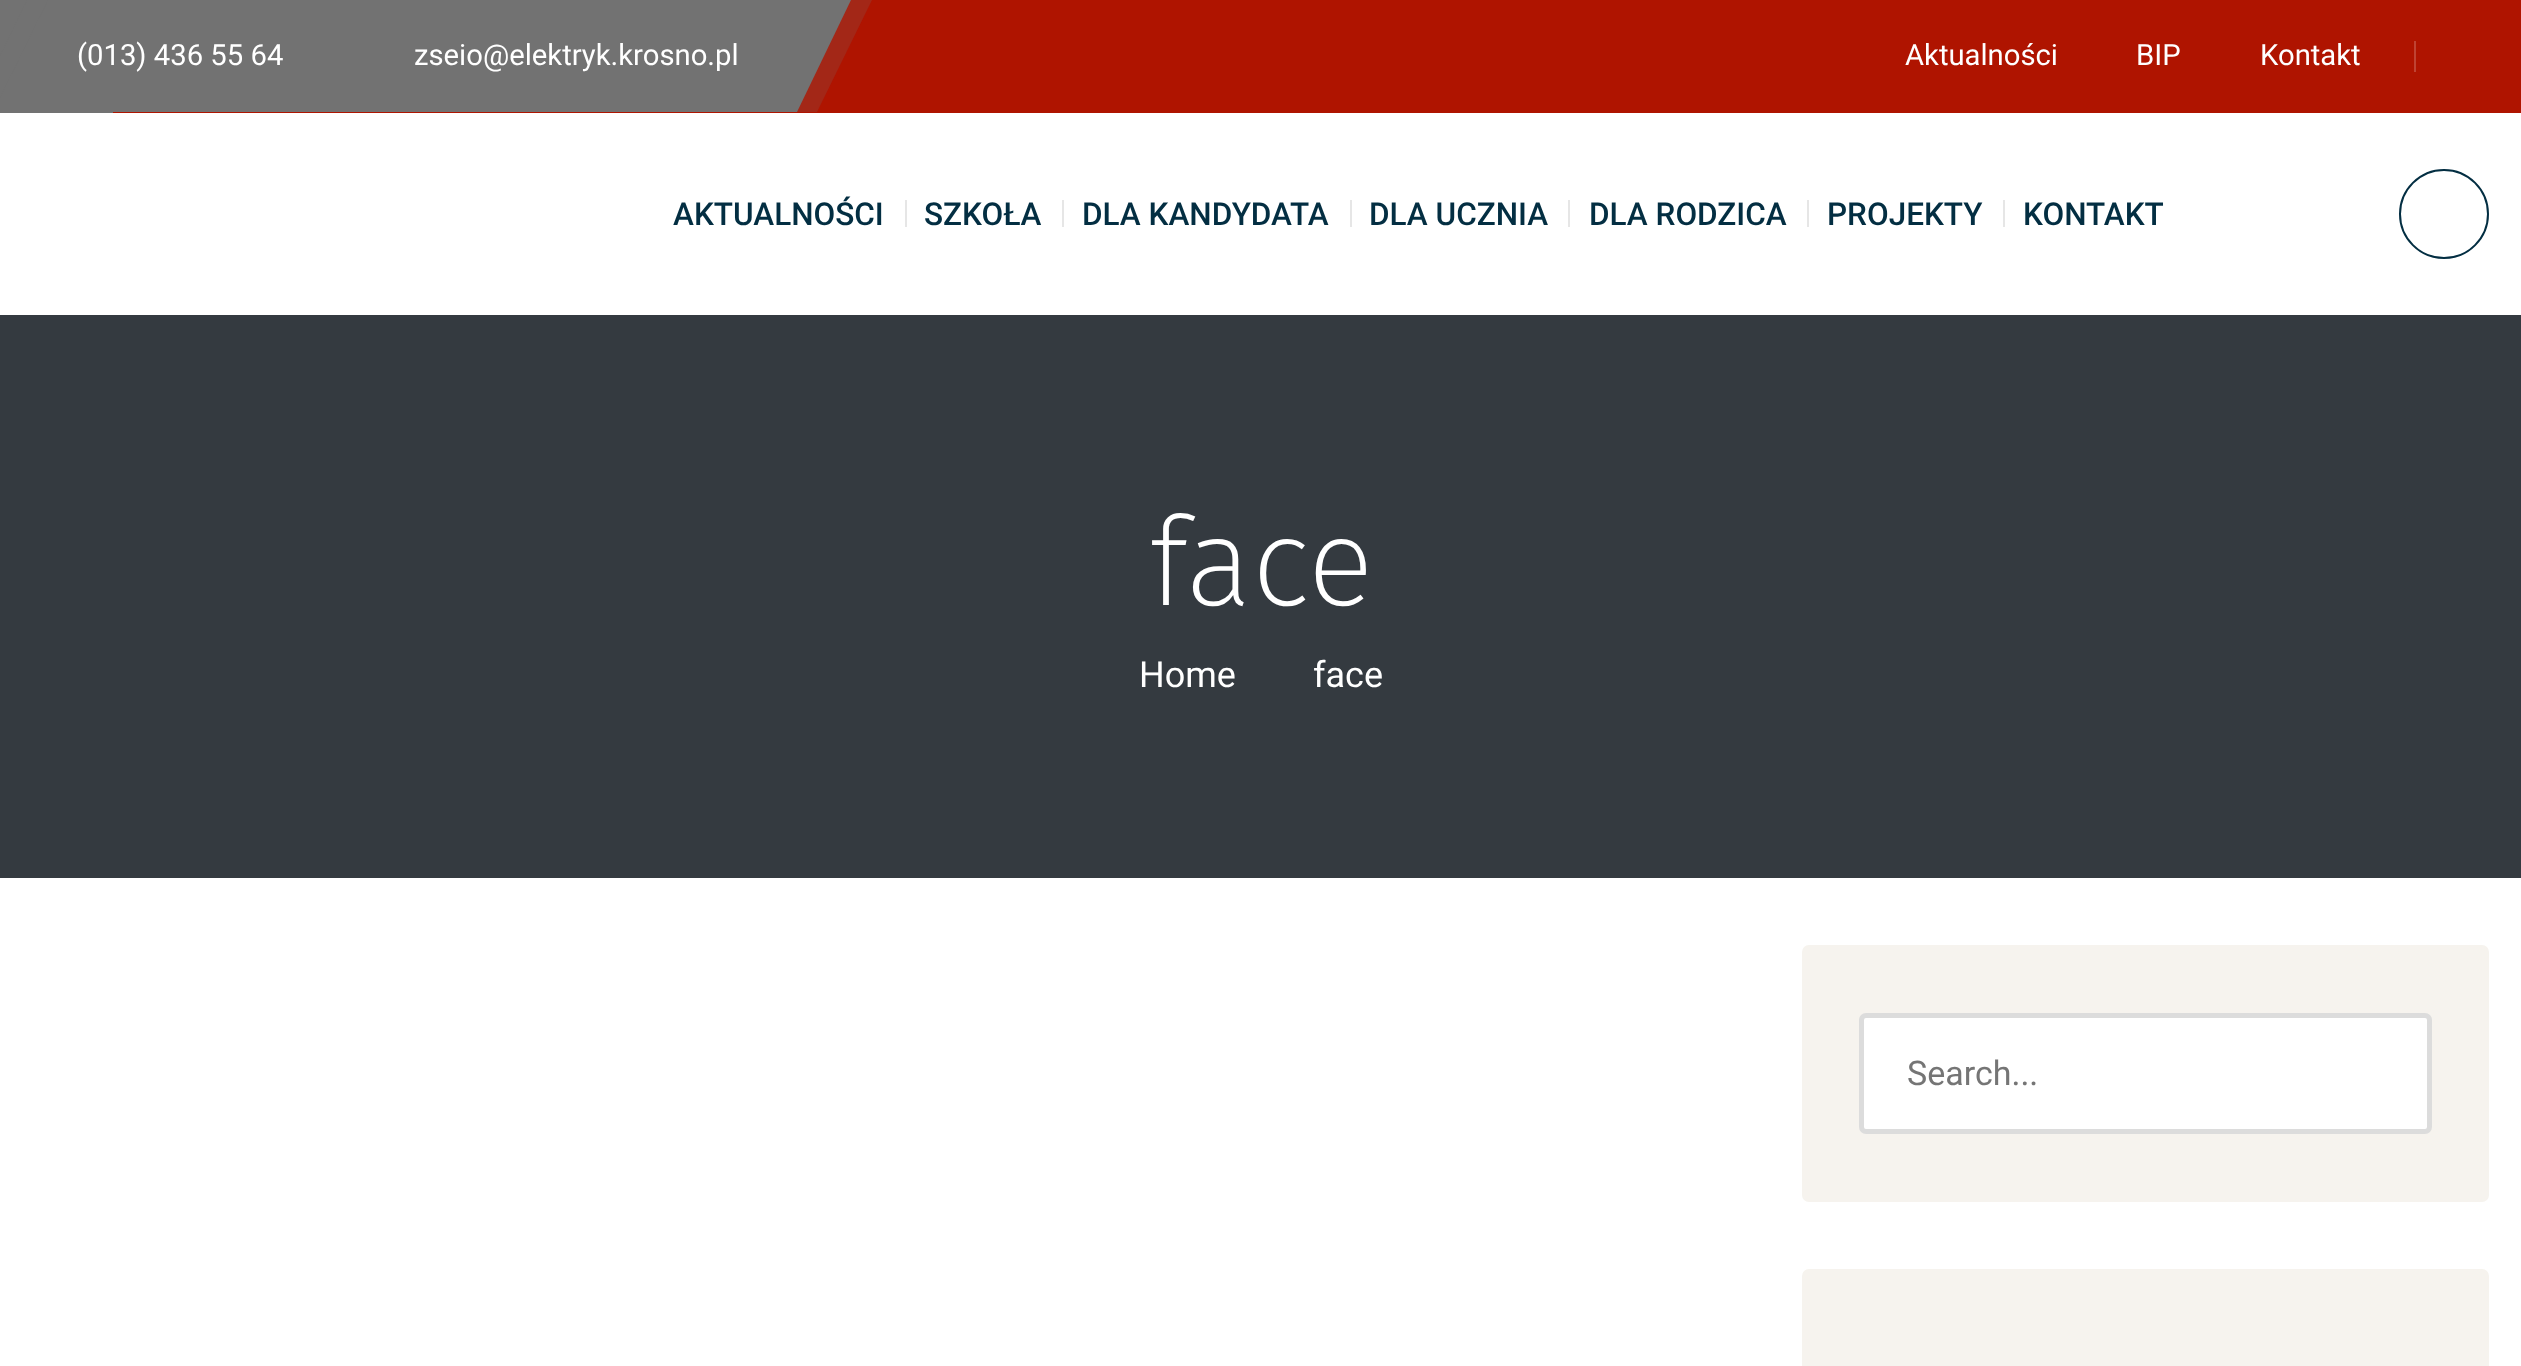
<svg xmlns="http://www.w3.org/2000/svg" width="2521" height="1366" viewBox="0 0 2521 1366">
  <style>
    .t1 { font: 29.25px Roboto; fill: #fff; }
    .t2 { font: 500 31.5px Roboto; fill: #032e42; }
    .t3 { font: 200 124px Fira Sans; fill: #fff; }
    .t4 { font: 36px Roboto; fill: #fff; }
    .t5 { font: 34px Roboto; fill: #757575; }
  </style>
  <rect width="100%" height="100%" fill="#fff"/>
  <rect x="113" y="0" width="2408" height="113" fill="#af1400"/>
  <rect x="0" y="0" width="113" height="113" fill="#727272"/>
  <path d="M27 0H851L797 112H-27Z" fill="#727272"/>
  <path d="M48 0H872L817 112H-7Z" fill="#72727233"/>
  <text x="77" y="65" class="t1">(013) 436 55 64</text>
  <text x="414" y="65" class="t1">zseio@elektryk.krosno.pl</text>
  <text x="1905" y="65" class="t1">Aktualności</text>
  <text x="2136" y="65" class="t1">BIP</text>
  <text x="2260" y="65" class="t1">Kontakt</text>
  <rect x="2414" y="41" width="2" height="31" fill="#bf4333"/>
  <text x="673" y="225" class="t2">AKTUALNOŚCI</text>
  <rect x="905" y="200" width="2" height="27" fill="#e6e6e6"/>
  <text x="924" y="225" class="t2">SZKOŁA</text>
  <rect x="1062" y="200" width="2" height="27" fill="#e6e6e6"/>
  <text x="1082" y="225" class="t2">DLA KANDYDATA</text>
  <rect x="1350" y="200" width="2" height="27" fill="#e6e6e6"/>
  <text x="1369" y="225" class="t2">DLA UCZNIA</text>
  <rect x="1568" y="200" width="2" height="27" fill="#e6e6e6"/>
  <text x="1589" y="225" class="t2">DLA RODZICA</text>
  <rect x="1807" y="200" width="2" height="27" fill="#e6e6e6"/>
  <text x="1827" y="225" class="t2">PROJEKTY</text>
  <rect x="2003" y="200" width="2" height="27" fill="#e6e6e6"/>
  <text x="2023" y="225" class="t2">KONTAKT</text>
  <circle cx="2444" cy="214" r="44" fill="none" stroke="#032e42" stroke-width="2"/>
  <rect x="0" y="315" width="2521" height="563" fill="#343a40"/>
  <text x="1149" y="605" class="t3">face</text>
  <text x="1139" y="687" class="t4">Home</text>
  <text x="1313" y="687" class="t4">face</text>
  <rect x="1802" y="945" width="687" height="257" rx="7" fill="#f6f3ee"/>
  <rect x="1861.5" y="1015.5" width="568" height="116" rx="4.5" fill="#fff" stroke="#dcdcdc" stroke-width="5"/>
  <text x="1907" y="1085" class="t5">Search...</text>
  <rect x="1802" y="1269" width="687" height="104" rx="7" fill="#f6f3ee"/>
</svg>
